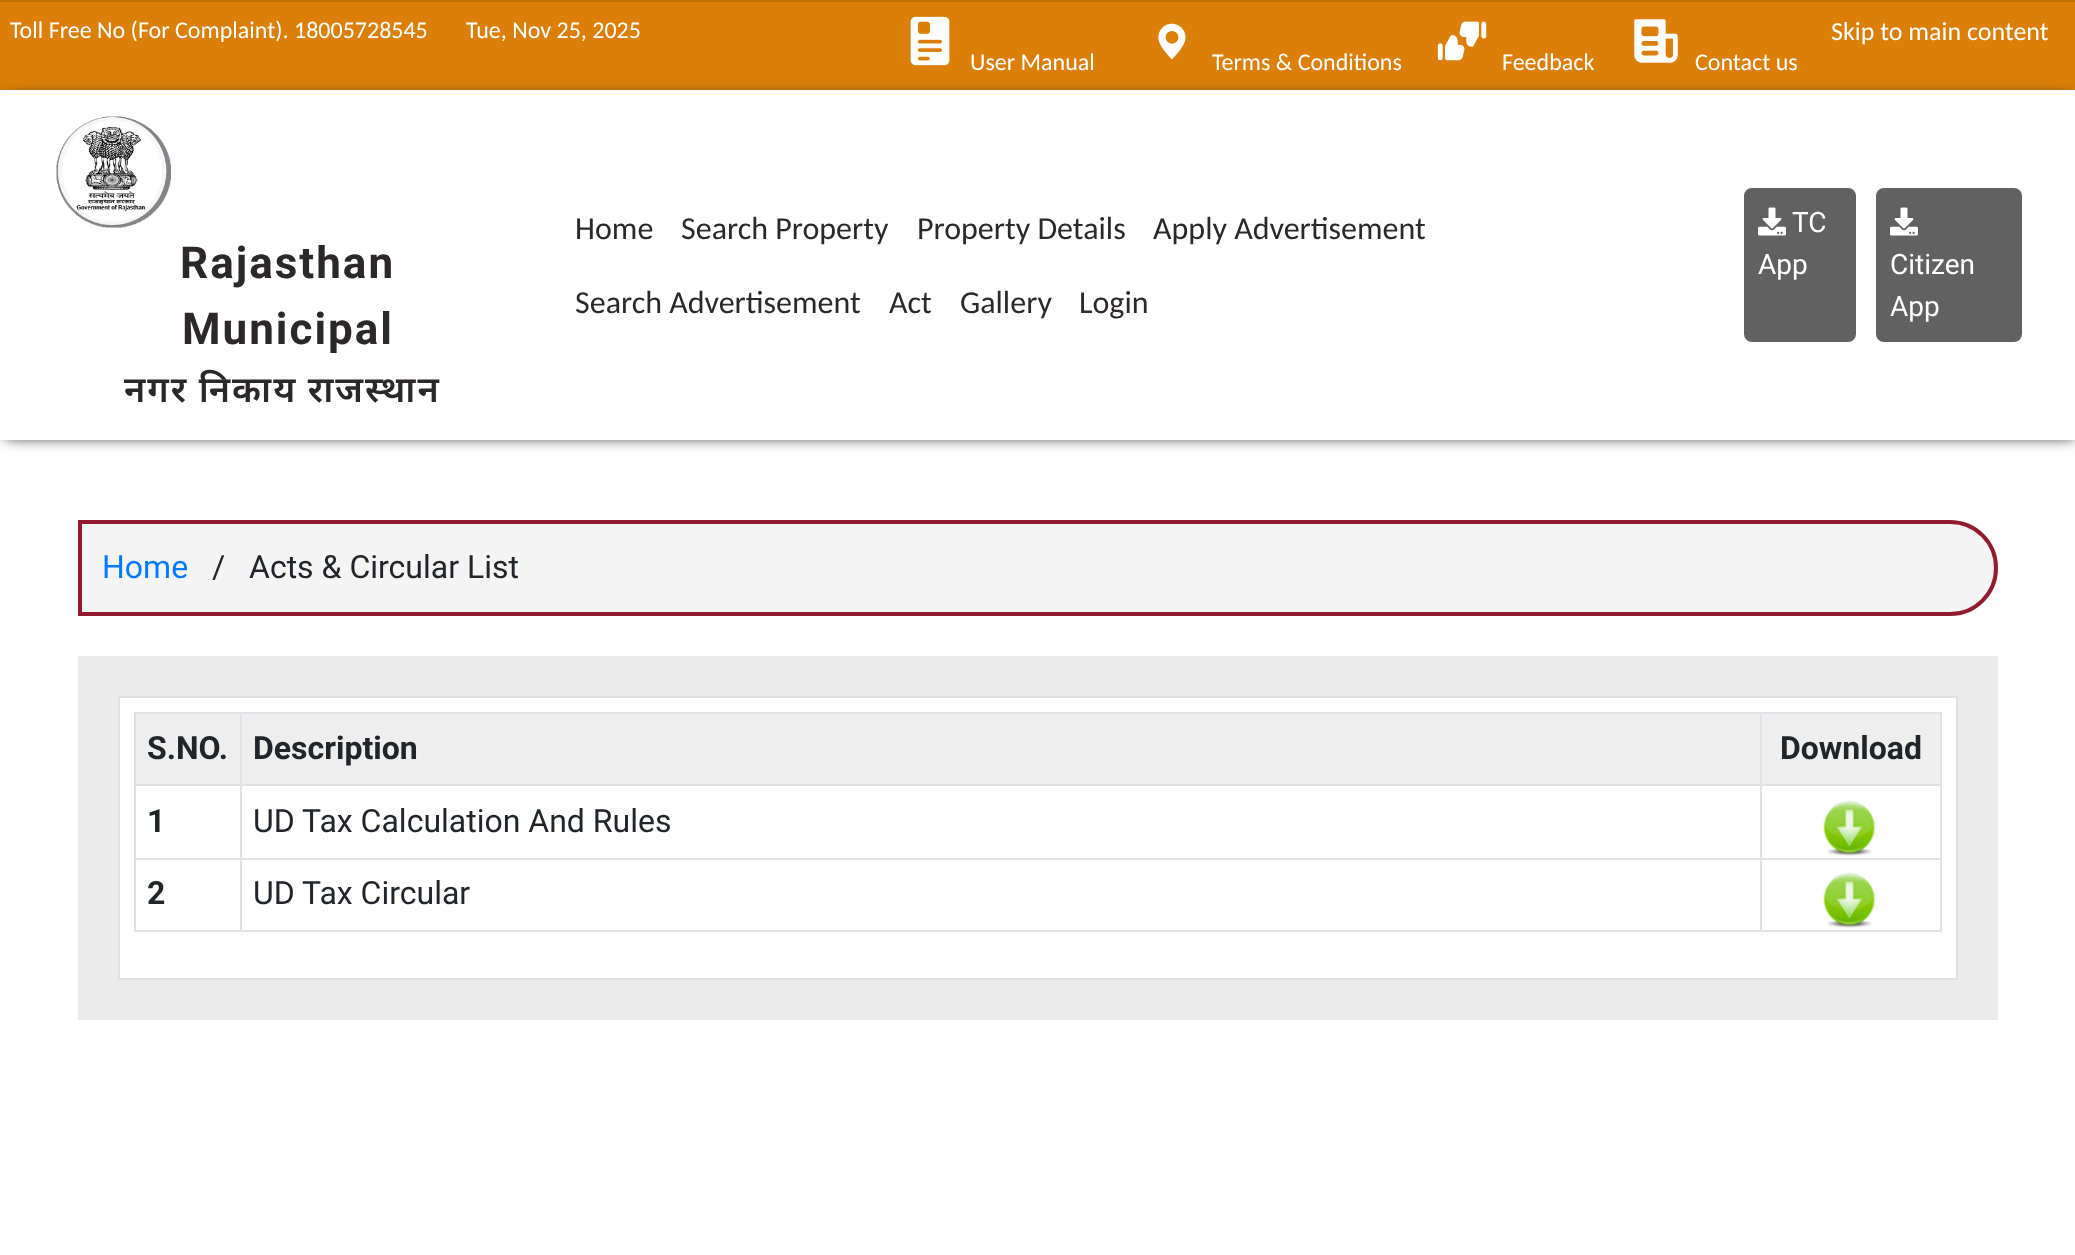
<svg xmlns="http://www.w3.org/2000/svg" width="2075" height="1255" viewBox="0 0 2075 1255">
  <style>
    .t1 { font: 24px Carlito; fill: #fff; }
    .t2 { font: 26px Carlito; fill: #fff; }
    .t3 { font: bold 44px Roboto; letter-spacing: 2px; fill: #2c2829; }
    .t4 { font: 600 36px Noto Sans; letter-spacing: 2px; fill: #2c2829; }
    .t5 { font: 32px Carlito; fill: #2c2829; }
    .t6 { font: 28px Roboto; fill: #fff; }
    .t7 { font: 32px Roboto; fill: #007bff; }
    .t8 { font: 32px Roboto; fill: #212529; }
    .t9 { font: bold 32px Roboto; fill: #212529; }
  </style>
  <defs>
    <clipPath id="clip1"><path d="M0 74H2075V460H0ZM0 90H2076V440H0Z" clip-rule="evenodd"/></clipPath>
  </defs>
  <rect width="100%" height="100%" fill="#fff"/>
  <rect x="0" y="2" width="2075" height="88" fill="#db7f08"/>
  <rect x="0" y="0" width="2075" height="2" fill="#c06f07"/>
  <text x="10" y="38" class="t1">Toll Free No (For Complaint). 18005728545</text>
  <text x="466" y="38" class="t1">Tue, Nov 25, 2025</text>
  <text x="1831" y="40" class="t2">Skip to main content</text>
  <image x="910" y="16" width="40" height="50" href="images/1.png"/>
  <text x="970" y="70" class="t1">User Manual</text>
  <image x="1158" y="23" width="28" height="37" href="images/2.png"/>
  <text x="1212" y="70" class="t1">Terms &amp; Conditions</text>
  <image x="1437" y="21" width="50" height="40" href="images/3.png"/>
  <text x="1502" y="70" class="t1">Feedback</text>
  <image x="1634" y="19" width="44" height="44" href="images/4.png"/>
  <text x="1695" y="70" class="t1">Contact us</text>
  <g clip-path="url(#clip1)">
    <rect x="6" y="96" width="2068" height="342" fill="#2c2829" filter="blur(7px)"/>
  </g>
  <image x="56" y="116" width="115" height="112" href="images/5.png"/>
  <text x="180" y="278" class="t3">Rajasthan</text>
  <text x="182" y="344" class="t3">Municipal</text>
  <text x="124" y="402" word-spacing="-1" class="t4">नगर निकाय राजस्थान</text>
  <text x="575" y="239" class="t5">Home</text>
  <text x="681" y="239" class="t5">Search Property</text>
  <text x="917" y="239" class="t5">Property Details</text>
  <text x="1153" y="239" class="t5">Apply Advertisement</text>
  <text x="575" y="313" class="t5">Search Advertisement</text>
  <text x="889" y="313" class="t5">Act</text>
  <text x="960" y="313" class="t5">Gallery</text>
  <text x="1079" y="313" class="t5">Login</text>
  <rect x="1744" y="188" width="112" height="154" rx="8" fill="#616161"/>
  <image x="1758" y="207" width="28" height="29" href="images/6.png"/>
  <text x="1792" y="232" class="t6">TC</text>
  <text x="1758" y="274" class="t6">App</text>
  <rect x="1876" y="188" width="146" height="154" rx="8" fill="#616161"/>
  <image x="1890" y="207" width="28" height="29" href="images/6.png"/>
  <text x="1890" y="274" class="t6">Citizen</text>
  <text x="1890" y="316" class="t6">App</text>
  <path d="M80 522H1950C1975.5 522 1996 542.5 1996 568C1996 593.5 1975.5 614 1950 614H80Z" fill="#f5f4f4" stroke="#931b2f" stroke-width="4"/>
  <text x="102" y="578" class="t7">Home</text>
  <text x="212" y="578" class="t8">/</text>
  <text x="249" y="578" class="t8">Acts &amp; Circular List</text>
  <rect x="78" y="656" width="1920" height="364" fill="#ebebeb"/>
  <rect x="119" y="697" width="1838" height="282" fill="#fff" stroke="#dfdfdf" stroke-width="2"/>
  <rect x="134" y="712" width="1808" height="2" fill="#dee2e6"/>
  <rect x="1940" y="712" width="2" height="220" fill="#dee2e6"/>
  <rect x="134" y="930" width="1808" height="2" fill="#dee2e6"/>
  <rect x="134" y="712" width="2" height="220" fill="#dee2e6"/>
  <rect x="136" y="714" width="104" height="70" fill="#eee"/>
  <text x="147" y="759" class="t9">S.NO.</text>
  <rect x="242" y="714" width="1518" height="70" fill="#eee"/>
  <rect x="1760" y="784" width="182" height="2" fill="#dee2e6"/>
  <rect x="1760" y="858" width="182" height="2" fill="#dee2e6"/>
  <rect x="1760" y="858" width="2" height="74" fill="#dee2e6"/>
  <rect x="240" y="858" width="1522" height="2" fill="#dee2e6"/>
  <rect x="1760" y="784" width="2" height="76" fill="#dee2e6"/>
  <rect x="240" y="784" width="1522" height="2" fill="#dee2e6"/>
  <rect x="240" y="858" width="2" height="74" fill="#dee2e6"/>
  <rect x="134" y="858" width="108" height="2" fill="#dee2e6"/>
  <rect x="240" y="784" width="2" height="76" fill="#dee2e6"/>
  <rect x="134" y="784" width="108" height="2" fill="#dee2e6"/>
  <rect x="240" y="712" width="2" height="74" fill="#dee2e6"/>
  <text x="253" y="759" class="t9">Description</text>
  <rect x="1762" y="714" width="178" height="70" fill="#eee"/>
  <rect x="1760" y="712" width="2" height="74" fill="#dee2e6"/>
  <text x="1780" y="759" class="t9">Download</text>
  <text x="147" y="832" class="t9">1</text>
  <text x="253" y="832" class="t8">UD Tax Calculation And Rules</text>
  <image x="1823" y="800" width="53" height="56" href="images/7.png"/>
  <text x="147" y="904" class="t9">2</text>
  <text x="253" y="904" class="t8">UD Tax Circular</text>
  <image x="1823" y="872" width="53" height="56" href="images/7.png"/>
</svg>
